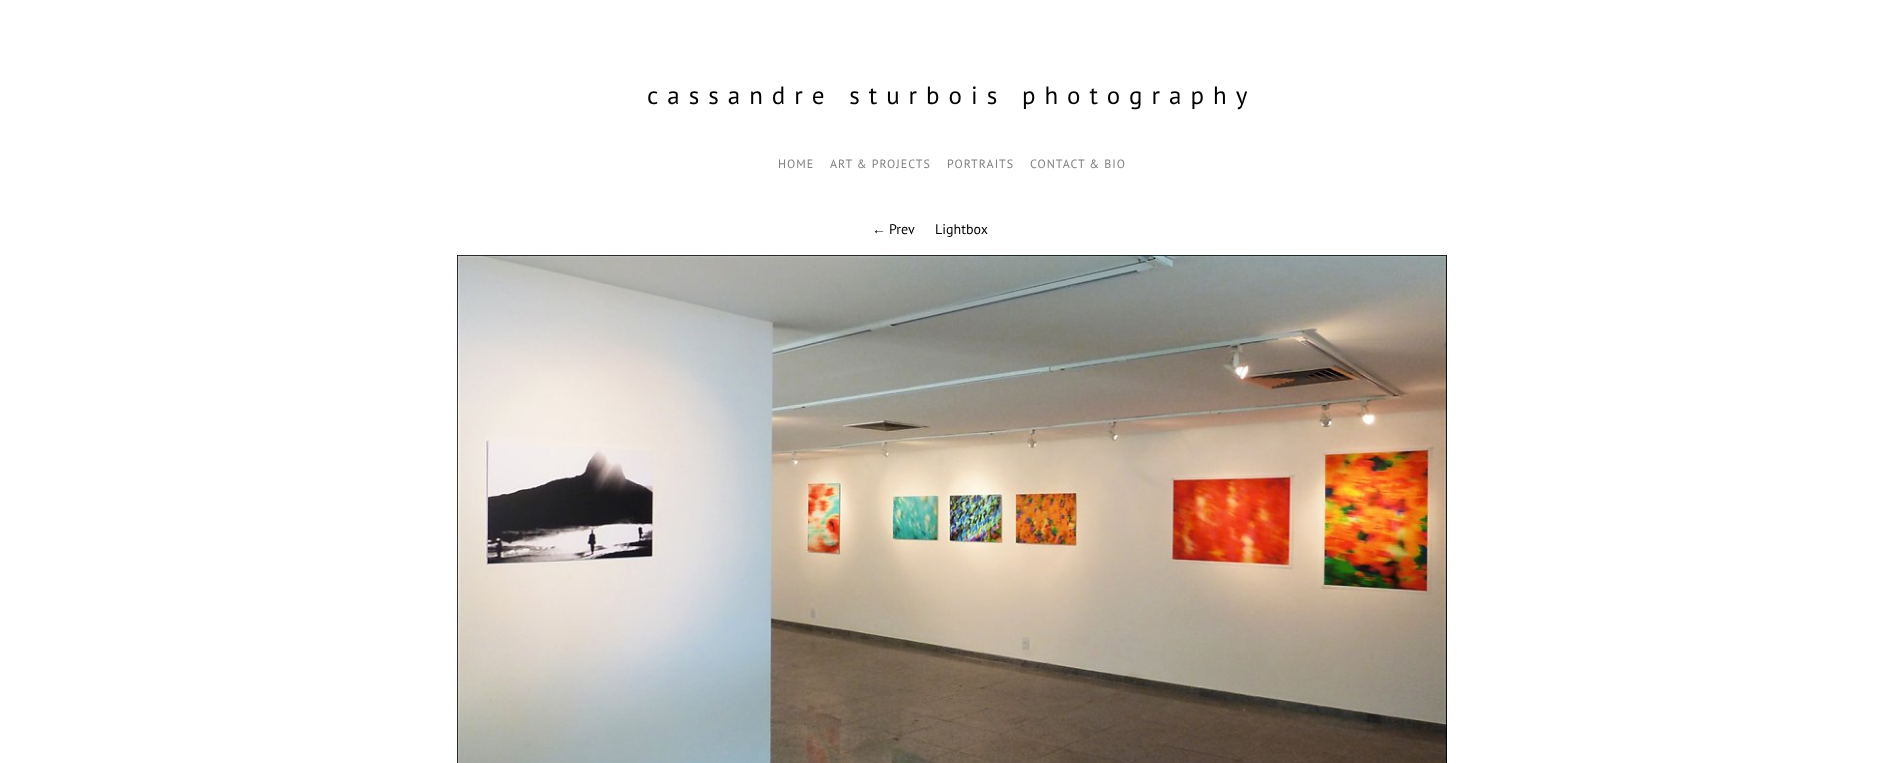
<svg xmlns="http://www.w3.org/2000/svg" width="1904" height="763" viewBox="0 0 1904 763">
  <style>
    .t1 { font: 25px PT Sans; letter-spacing: 9px; fill: #000; }
    .t2 { font: 12px PT Sans; letter-spacing: 1px; fill: #808080; }
    .t3 { font: 14px Liberation Sans; fill: #000; }
    .t4 { font: 14px PT Sans; fill: #000; }
  </style>
  <rect width="100%" height="100%" fill="#fff"/>
  <text x="647" y="104" class="t1">cassandre sturbois photography</text>
  <text x="778" y="168" class="t2">HOME</text>
  <text x="830" y="168" class="t2">ART &amp; PROJECTS</text>
  <text x="947" y="168" class="t2">PORTRAITS</text>
  <text x="1030" y="168" class="t2">CONTACT &amp; BIO</text>
  <text x="872" y="234" class="t3">←</text>
  <text x="889" y="234" class="t4">Prev</text>
  <text x="935" y="234" class="t4">Lightbox</text>
  <image x="457" y="255" width="990" height="508" href="images/1.png"/>
</svg>
